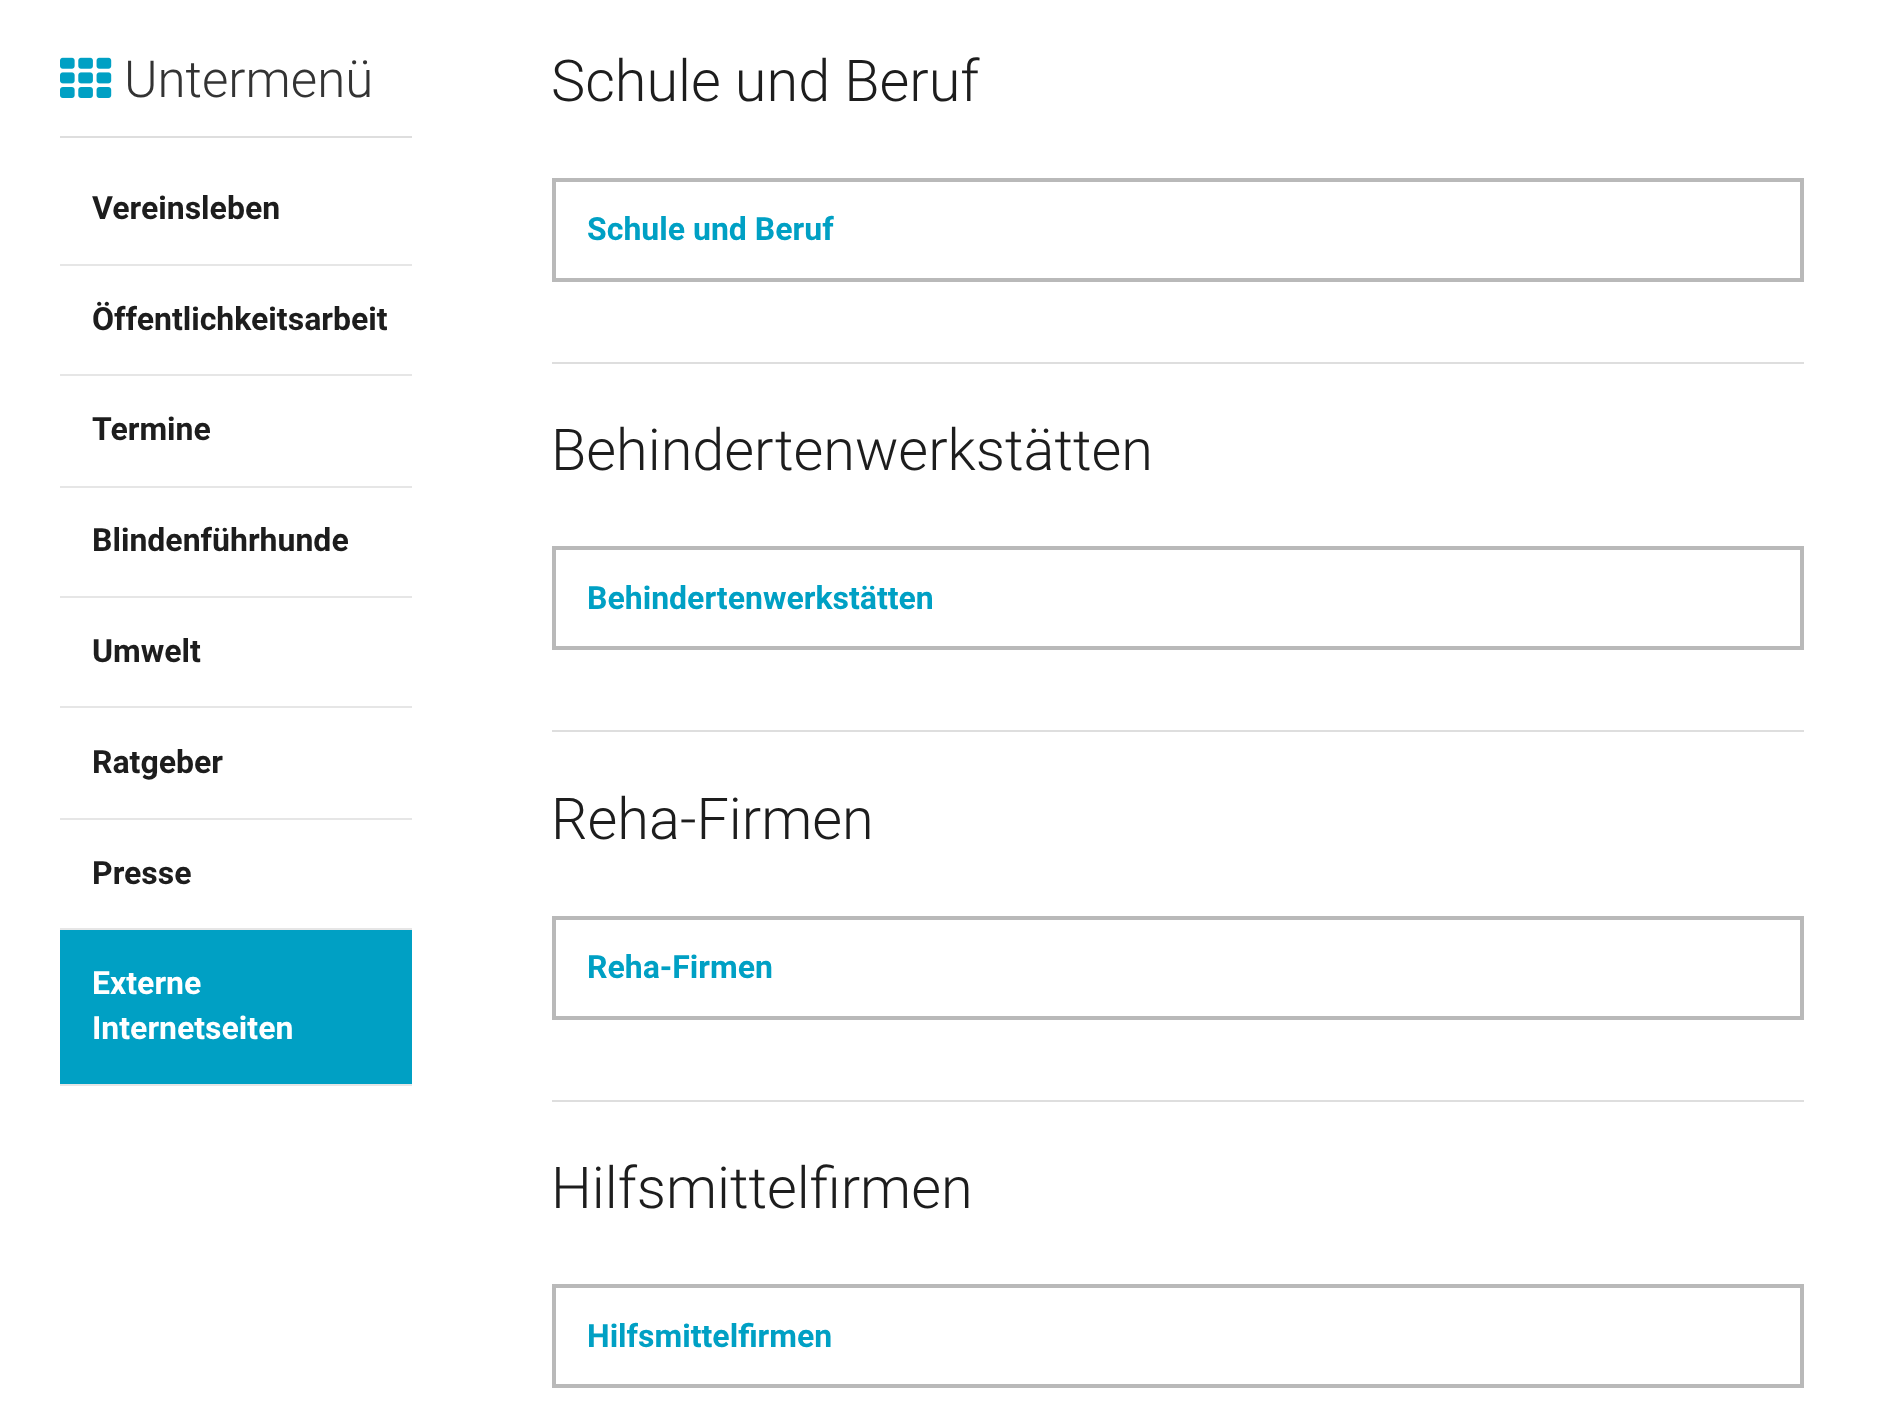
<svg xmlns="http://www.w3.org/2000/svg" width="1883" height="1412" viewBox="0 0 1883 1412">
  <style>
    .t1 { font: 300 51px Roboto; fill: #333; }
    .t2 { font: bold 32px Roboto; fill: #1d1d1d; }
    .t3 { font: bold 32px Roboto; fill: #fff; }
    .t4 { font: 300 57.6px Roboto; fill: #1d1d1d; }
    .t5 { font: bold 32px Roboto; fill: #00a0c4; }
  </style>
  <rect width="100%" height="100%" fill="#fff"/>
  <rect x="60" y="136" width="352" height="2" fill="#dedede"/>
  <image x="60" y="57" width="52" height="41" href="images/1.png"/>
  <text x="124" y="97" class="t1">Untermenü</text>
  <rect x="60" y="264" width="352" height="2" fill="#e6e6e6"/>
  <text x="92" y="219" class="t2">Vereinsleben</text>
  <rect x="60" y="374" width="352" height="2" fill="#e6e6e6"/>
  <text x="92" y="330" class="t2">Öffentlichkeitsarbeit</text>
  <rect x="60" y="486" width="352" height="2" fill="#e6e6e6"/>
  <text x="92" y="440" class="t2">Termine</text>
  <rect x="60" y="596" width="352" height="2" fill="#e6e6e6"/>
  <text x="92" y="551" class="t2">Blindenführhunde</text>
  <rect x="60" y="706" width="352" height="2" fill="#e6e6e6"/>
  <text x="92" y="662" class="t2">Umwelt</text>
  <rect x="60" y="818" width="352" height="2" fill="#e6e6e6"/>
  <text x="92" y="773" class="t2">Ratgeber</text>
  <rect x="60" y="928" width="352" height="2" fill="#e6e6e6"/>
  <text x="92" y="884" class="t2">Presse</text>
  <rect x="60" y="930" width="352" height="154" fill="#00a0c4"/>
  <rect x="60" y="1084" width="352" height="2" fill="#e6e6e6"/>
  <text x="92" y="994" class="t3">Externe</text>
  <text x="92" y="1039" class="t3">Internetseiten</text>
  <rect x="552" y="362" width="1252" height="2" fill="#dedede"/>
  <text x="551" y="101" class="t4">Schule und Beruf</text>
  <rect x="554" y="180" width="1248" height="100" fill="none" stroke="#b9b9b9" stroke-width="4"/>
  <text x="587" y="240" class="t5">Schule und Beruf</text>
  <rect x="552" y="730" width="1252" height="2" fill="#dedede"/>
  <text x="551" y="470" class="t4">Behindertenwerkstätten</text>
  <rect x="554" y="548" width="1248" height="100" fill="none" stroke="#b9b9b9" stroke-width="4"/>
  <text x="587" y="609" class="t5">Behindertenwerkstätten</text>
  <rect x="552" y="1100" width="1252" height="2" fill="#dedede"/>
  <text x="551" y="839" class="t4">Reha-Firmen</text>
  <rect x="554" y="918" width="1248" height="100" fill="none" stroke="#b9b9b9" stroke-width="4"/>
  <text x="587" y="978" class="t5">Reha-Firmen</text>
  <text x="551" y="1208" class="t4">Hilfsmittelfirmen</text>
  <rect x="554" y="1286" width="1248" height="100" fill="none" stroke="#b9b9b9" stroke-width="4"/>
  <text x="587" y="1347" class="t5">Hilfsmittelfirmen</text>
</svg>
